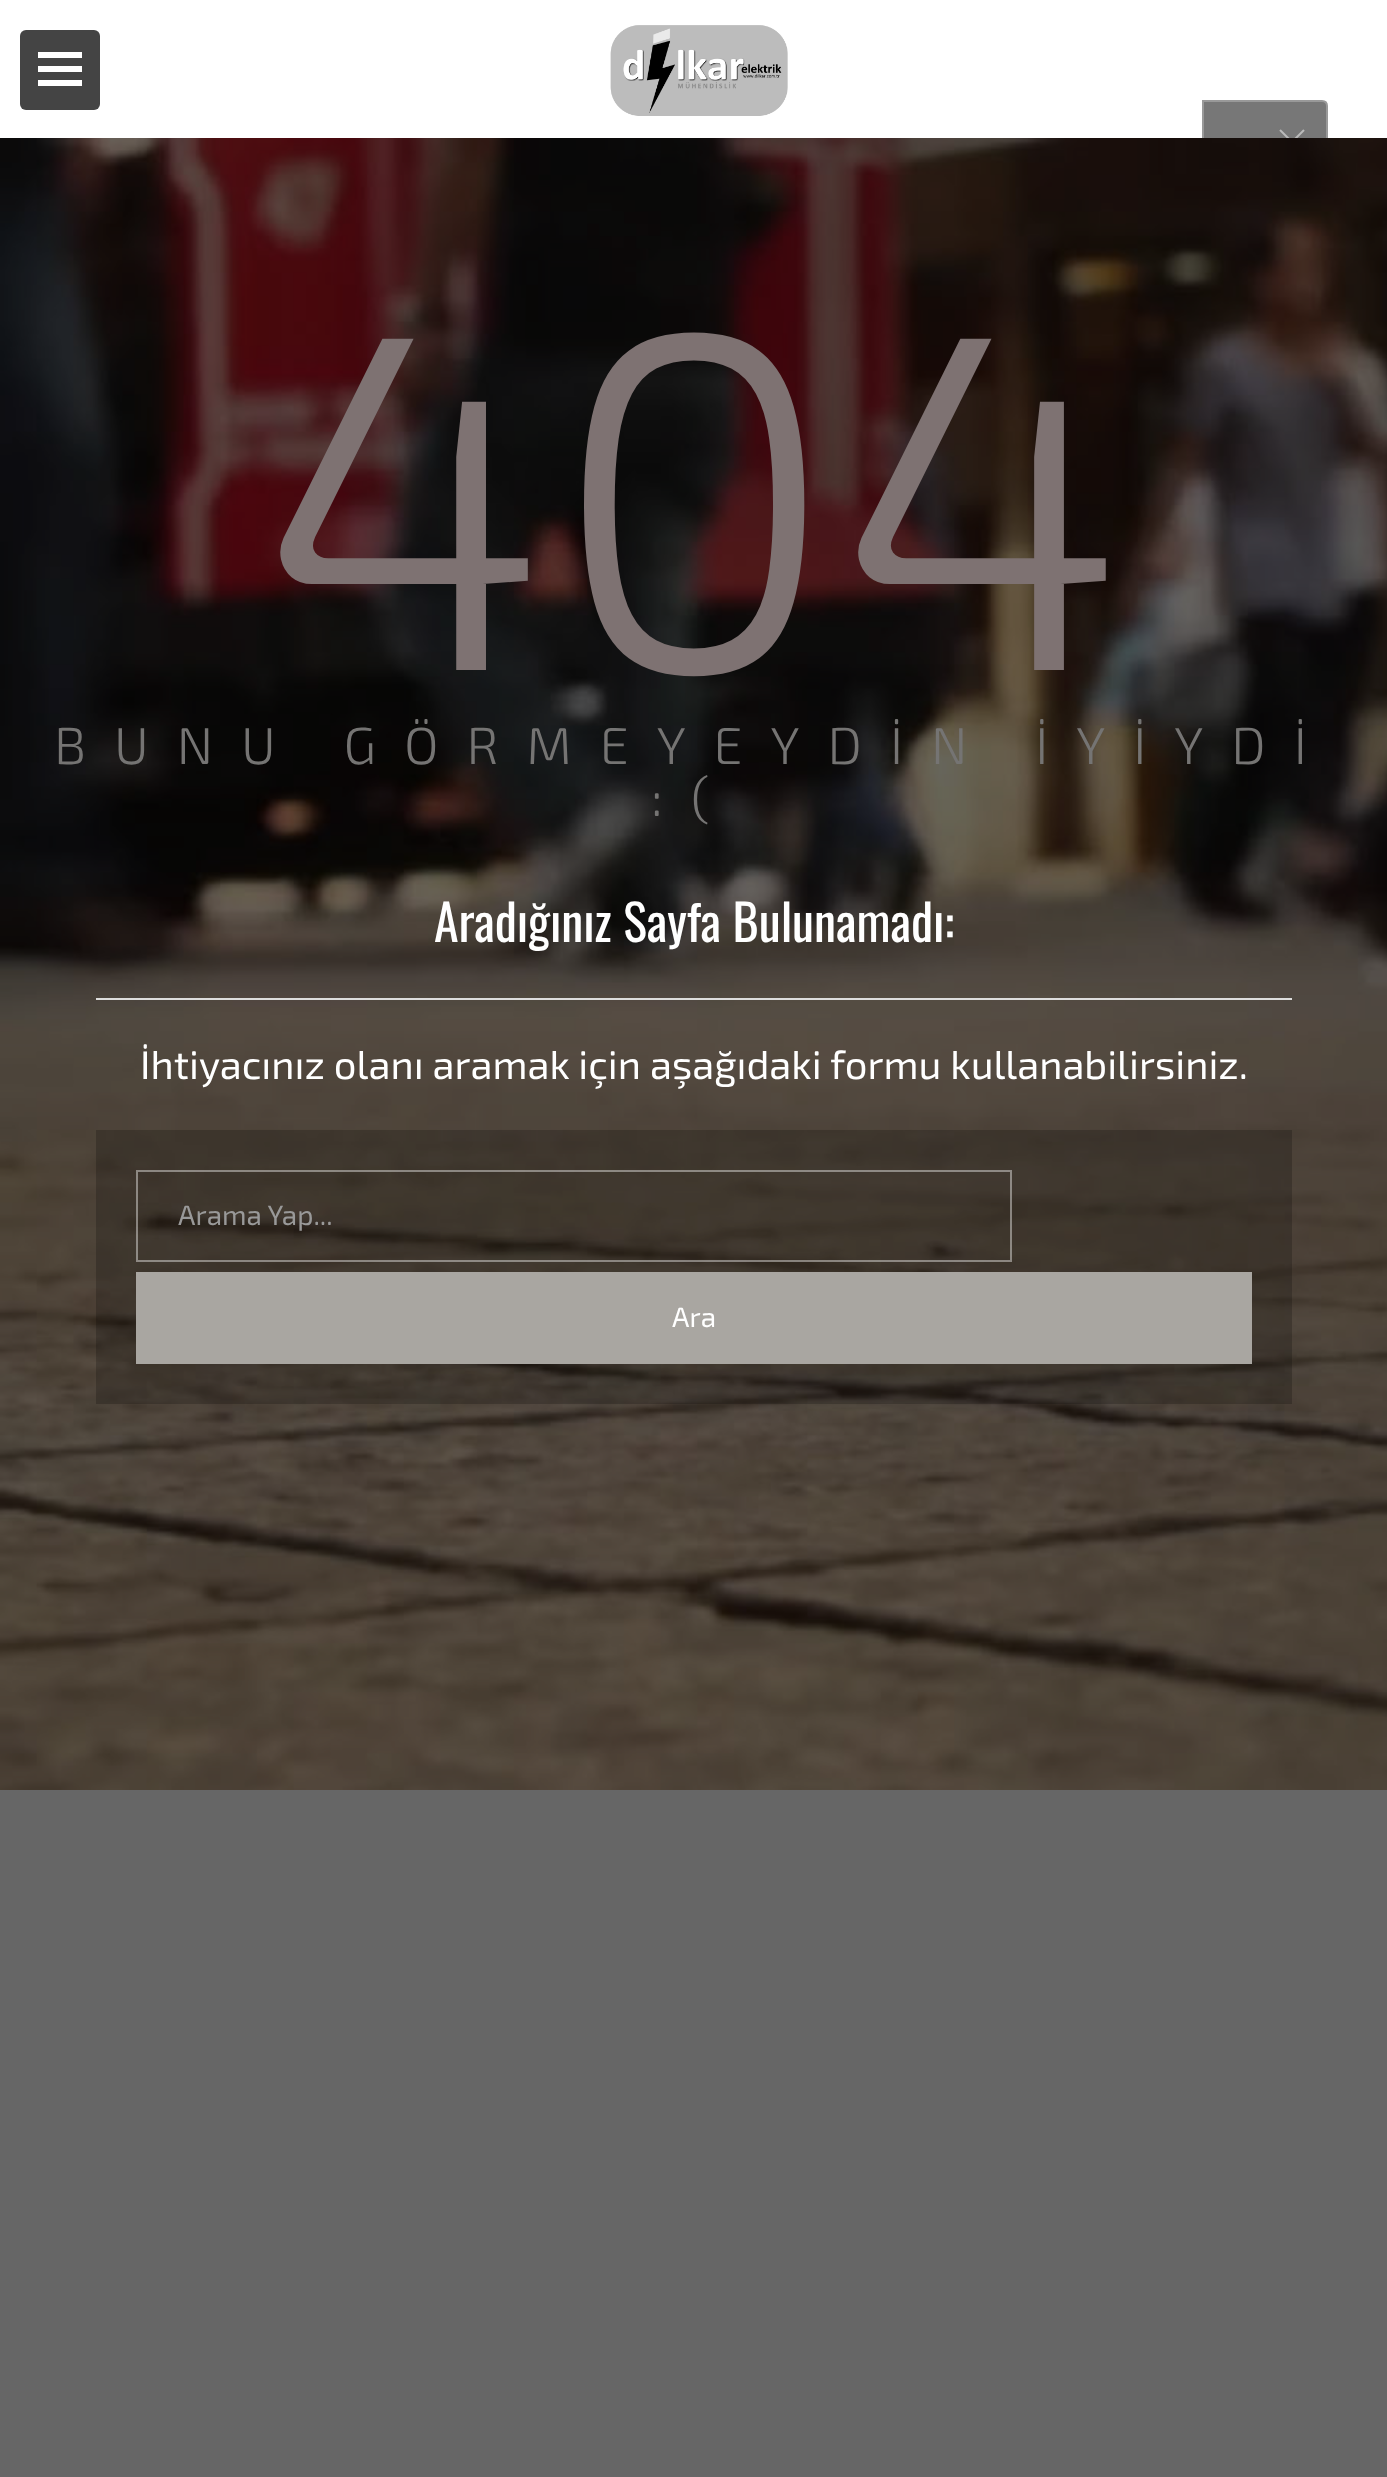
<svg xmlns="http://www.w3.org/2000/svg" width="1387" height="2477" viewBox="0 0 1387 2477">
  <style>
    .t1 { font: 300 480px 'Exo 2'; fill: #7e7272; }
    .t2 { font: 300 52px 'Exo 2'; letter-spacing: 28px; fill: #757473; }
    .t3 { font: 50px Oswald; fill: #fff; }
    .t4 { font: 40px 'Exo 2'; fill: #fff; }
    .t5 { font: 28px 'Exo 2'; fill: #999; }
    .t6 { font: 28px 'Exo 2'; fill: #fff; }
  </style>
  <rect width="100%" height="100%" fill="#fff"/>
  <path d="M1203 101H1322C1325 101 1327 103 1327 106V166C1327 169 1325 171 1322 171H1203Z" fill="#777" stroke="#999" stroke-width="2"/>
  <image x="1279" y="129" width="26" height="9" href="images/1.png"/>
  <rect x="20" y="30" width="80" height="80" rx="6" fill="#444"/>
  <rect x="38" y="52" width="44" height="6" fill="#fff"/>
  <rect x="38" y="66" width="44" height="6" fill="#fff"/>
  <rect x="38" y="80" width="44" height="6" fill="#fff"/>
  <image x="610" y="25" width="178" height="91" href="images/2.png"/>
  <image x="0" y="138" width="1387" height="1652" href="images/3.png"/>
  <rect x="0" y="138" width="1387" height="2339" fill="#00000099"/>
  <text x="259" y="670" class="t1">404</text>
  <text x="54" y="764" class="t2">BUNU GÖRMEYEYDİN İYİYDİ</text>
  <text x="651" y="816" class="t2">:(</text>
  <text x="434" y="942" class="t3">Aradığınız Sayfa Bulunamadı:</text>
  <rect x="96" y="998" width="1196" height="2" fill="#ddd"/>
  <text x="140" y="1079" class="t4">İhtiyacınız olanı aramak için aşağıdaki formu kullanabilirsiniz.</text>
  <rect x="96" y="1130" width="1196" height="274" fill="#00000033"/>
  <rect x="137" y="1171" width="874" height="90" fill="none" stroke="#ffffff69" stroke-width="2"/>
  <text x="178" y="1225" class="t5">Arama Yap...</text>
  <rect x="136" y="1272" width="1116" height="92" fill="#a9a6a1"/>
  <text x="672" y="1327" class="t6">Ara</text>
</svg>
